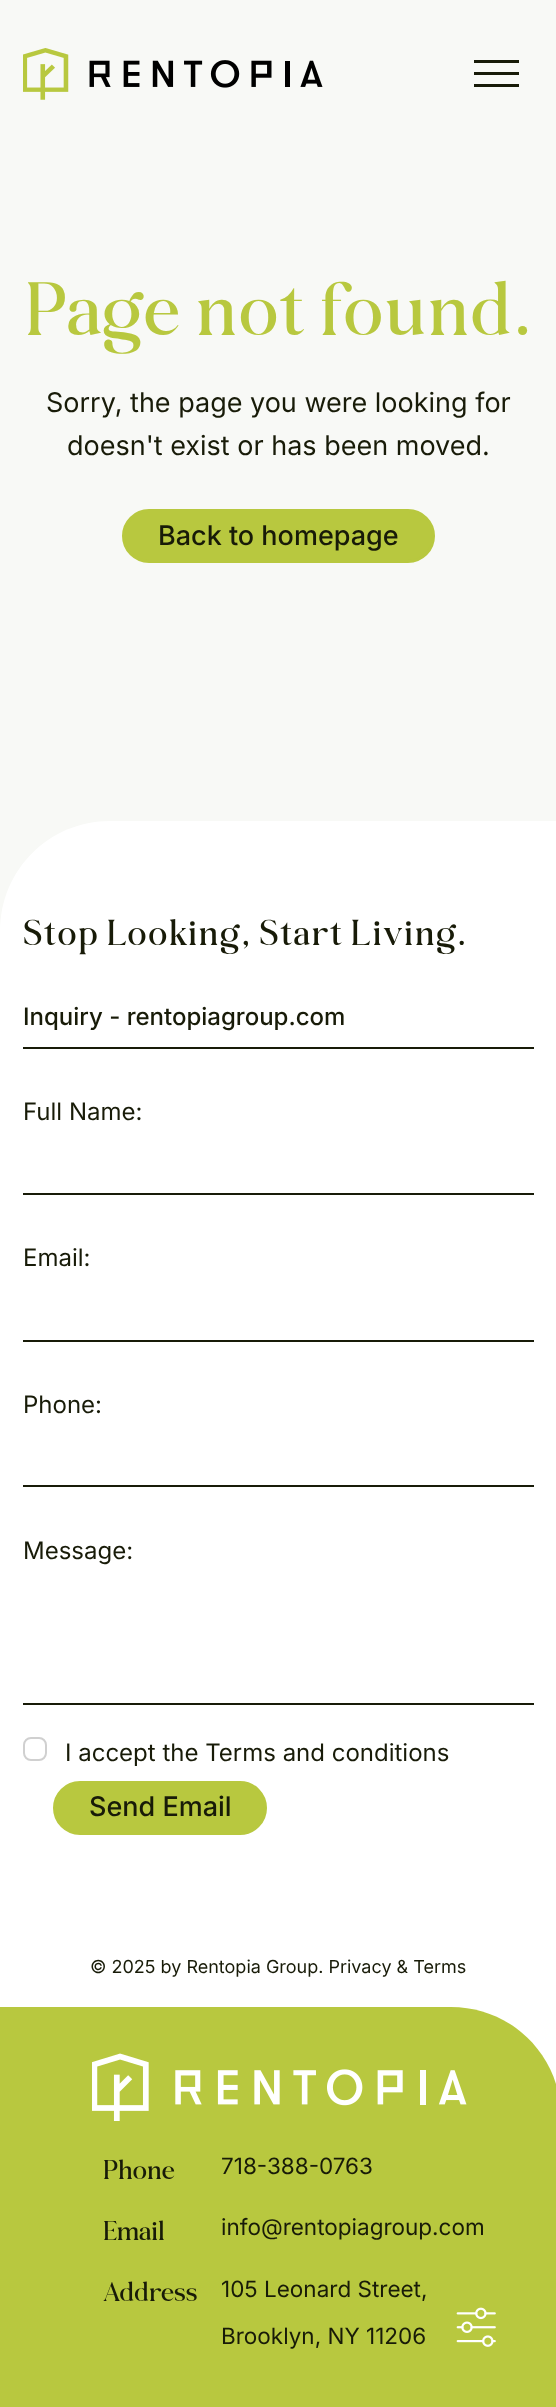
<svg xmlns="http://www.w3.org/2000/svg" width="556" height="2407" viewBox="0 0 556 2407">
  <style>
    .t1 { font: 75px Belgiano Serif; letter-spacing: 1.8px; fill: #b8c83f; }
    .t2 { font: 27px Inter; fill: #181b08; }
    .t3 { font: 500 27px Inter; fill: #181b08; }
    .t4 { font: 36px Belgiano Serif; letter-spacing: 1.8px; fill: #181b08; }
    .t5 { font: 500 24px Inter; fill: #181b08; }
    .t6 { font: 24px Inter; fill: #181b08; }
    .t7 { font: 18px Inter; fill: #181b08; }
    .t8 { font: 27px Belgiano Serif; fill: #181b08; }
    .t9 { font: 22.5px Inter; fill: #181b08; }
  </style>
  <rect width="100%" height="100%" fill="#f8f9f6"/>
  <image x="23" y="48" width="300" height="52" href="images/1.png"/>
  <rect x="474" y="72" width="45" height="3" fill="#181b08"/>
  <rect x="474" y="60" width="45" height="3" fill="#181b08"/>
  <rect x="474" y="84" width="45" height="3" fill="#181b08"/>
  <text x="25" y="335" class="t1">Page not found.</text>
  <text x="46" y="412" class="t2">Sorry, the page you were looking for</text>
  <text x="67" y="455" class="t2">doesn't exist or has been moved.</text>
  <rect x="123.5" y="510.5" width="310" height="51" rx="25.5" fill="#b8c83f" stroke="#b8c83f" stroke-width="3"/>
  <text x="158" y="545" class="t3">Back to homepage</text>
  <path d="M110 821H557V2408H0V931C0 870 49 821 110 821Z" fill="#fff"/>
  <text x="23" y="945" class="t4">Stop Looking, Start Living.</text>
  <rect x="23" y="1047" width="511" height="2" fill="#181b08"/>
  <text x="23" y="1025" class="t5">Inquiry - rentopiagroup.com</text>
  <text x="23" y="1120" class="t6">Full Name:</text>
  <rect x="23" y="1193" width="511" height="2" fill="#181b08"/>
  <text x="23" y="1266" class="t6">Email:</text>
  <rect x="23" y="1340" width="511" height="2" fill="#181b08"/>
  <text x="23" y="1413" class="t6">Phone:</text>
  <rect x="23" y="1485" width="511" height="2" fill="#181b08"/>
  <text x="23" y="1559" class="t6">Message:</text>
  <rect x="23" y="1703" width="511" height="2" fill="#181b08"/>
  <rect x="24" y="1738" width="22" height="22" rx="7" fill="none" stroke="#d0d0d0" stroke-width="2"/>
  <text x="65" y="1761" class="t6">I accept the Terms and conditions</text>
  <rect x="54.5" y="1782.5" width="211" height="51" rx="25.5" fill="#b8c83f" stroke="#b8c83f" stroke-width="3"/>
  <text x="89" y="1816" class="t3">Send Email</text>
  <text x="90" y="1973" class="t7">© 2025 by Rentopia Group. Privacy &amp; Terms</text>
  <path d="M-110 2007H451C512 2007 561 2056 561 2117V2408H-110Z" fill="#b8c83f"/>
  <image x="92" y="2053" width="375" height="68" href="images/2.png"/>
  <text x="103" y="2179" class="t8">Phone</text>
  <text x="221" y="2174" class="t9">718-388-0763</text>
  <text x="103" y="2240" class="t8">Email</text>
  <text x="221" y="2235" class="t9">info@rentopiagroup.com</text>
  <text x="103" y="2301" class="t8">Address</text>
  <text x="221" y="2297" class="t9">105 Leonard Street,</text>
  <text x="221" y="2344" class="t9">Brooklyn, NY 11206</text>
  <image x="456" y="2307" width="40" height="40" href="images/3.png"/>
</svg>
